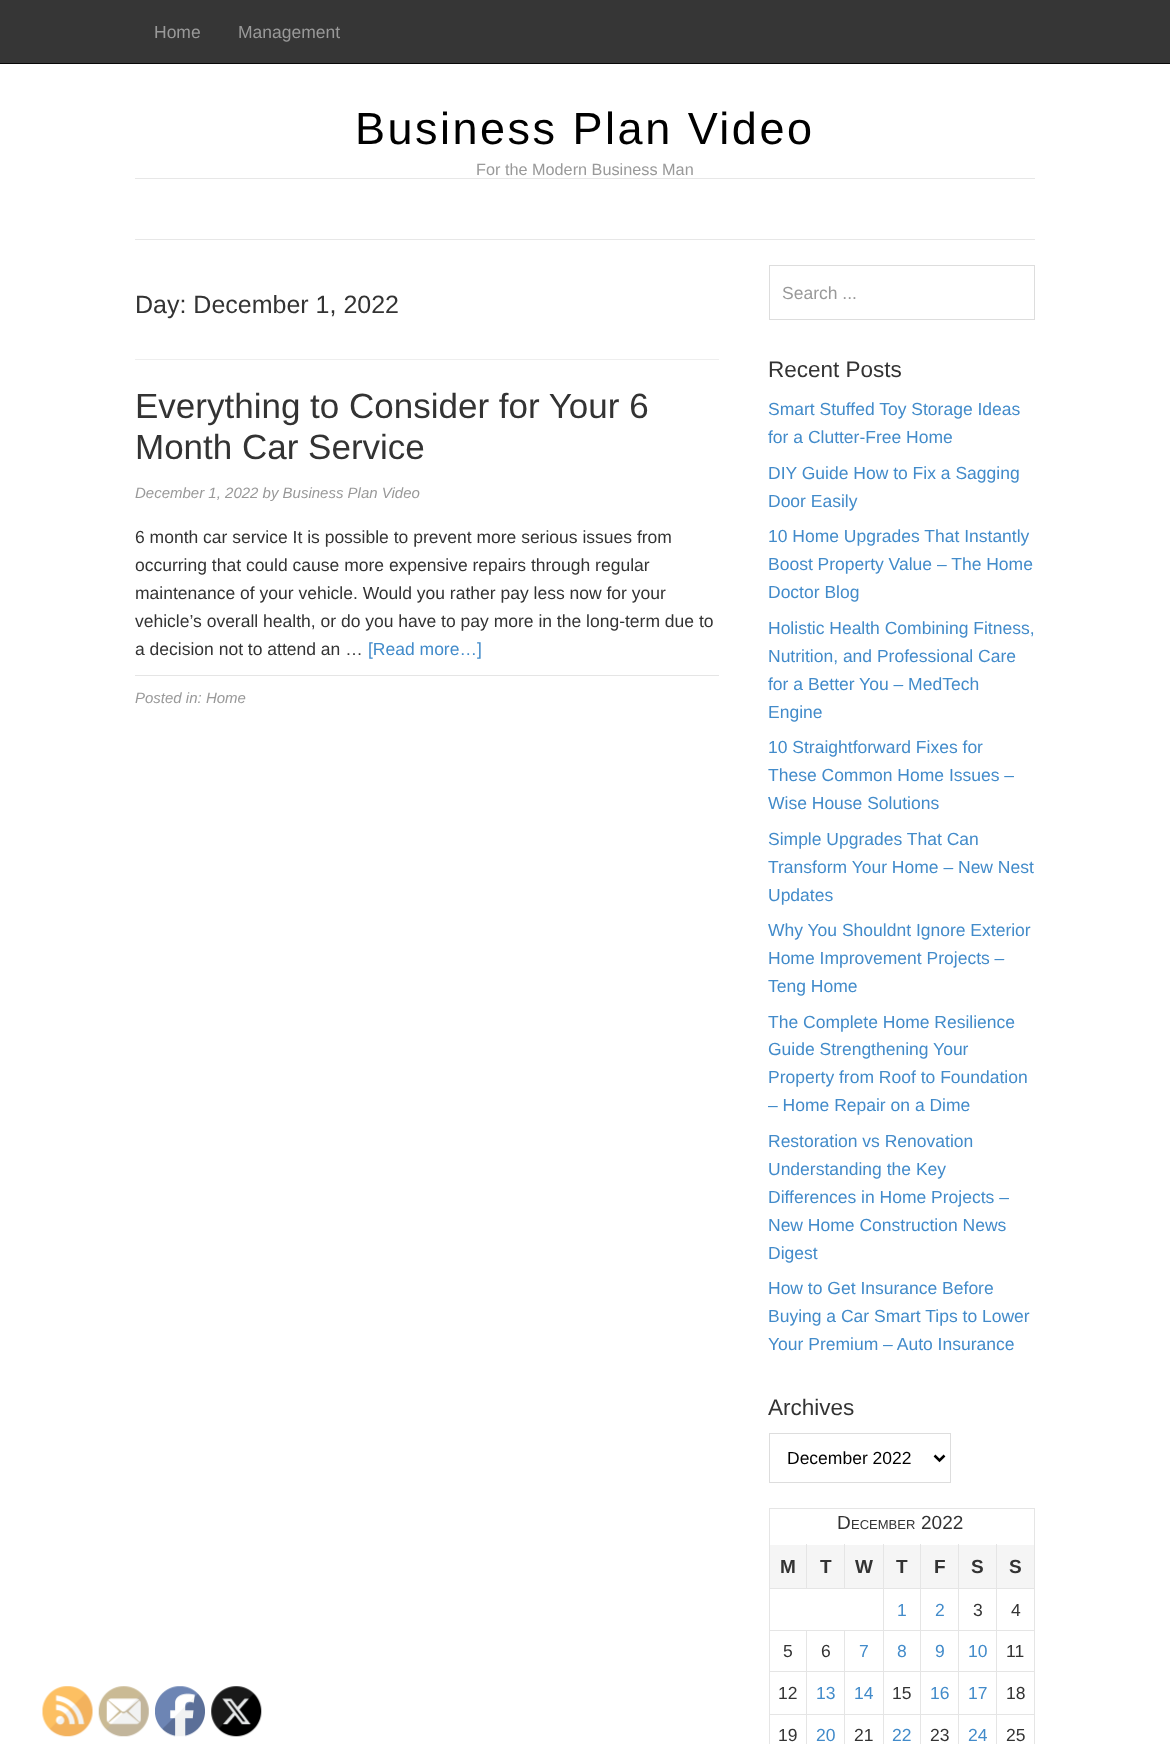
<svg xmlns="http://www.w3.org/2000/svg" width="1170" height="1744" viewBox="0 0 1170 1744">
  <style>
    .t1 { font: 17.5px Liberation Sans; fill: #999; }
    .t2 { font: 45px Liberation Sans; letter-spacing: 2.5px; fill: #000; }
    .t3 { font: 16.25px Liberation Sans; fill: #999; }
    .t4 { font: 25px Liberation Sans; fill: #333; }
    .t5 { font: 35px Liberation Sans; fill: #333; }
    .t6 { font: italic 15px Liberation Sans; fill: #999; }
    .t7 { font: 17.5px Liberation Sans; fill: #333; }
    .t8 { font: 17.5px Liberation Sans; fill: #428bca; }
    .t9 { font: 22.5px Liberation Sans; fill: #333; }
    .t10 { font: 17.5px Liberation Sans; fill: #000; }
    .t11 { font: 19px Liberation Sans; fill: #333; }
    .t12 { font: 13px Liberation Sans; fill: #333; }
    .t13 { font: bold 19px Liberation Sans; fill: #333; }
  </style>
  <rect width="100%" height="100%" fill="#fff"/>
  <rect x="0" y="0" width="1170" height="63" fill="#363636"/>
  <rect x="0" y="63" width="1170" height="1" fill="#080808"/>
  <text x="154" y="38" class="t1">Home</text>
  <text x="238" y="38" class="t1">Management</text>
  <text x="355" y="144" class="t2">Business Plan Video</text>
  <text x="476" y="175" class="t3">For the Modern Business Man</text>
  <rect x="135" y="178" width="900" height="1" fill="#e7e7e7"/>
  <rect x="135" y="239" width="900" height="1" fill="#e7e7e7"/>
  <rect x="135" y="359" width="584" height="1" fill="#eee"/>
  <text x="135" y="313" class="t4">Day: December 1, 2022</text>
  <text x="135" y="418" class="t5">Everything to Consider for Your 6</text>
  <text x="135" y="459" class="t5">Month Car Service</text>
  <text x="135" y="498" class="t6">December 1, 2022 by Business Plan Video</text>
  <text x="135" y="543" class="t7">6 month car service It is possible to prevent more serious issues from</text>
  <text x="135" y="571" class="t7">occurring that could cause more expensive repairs through regular</text>
  <text x="135" y="599" class="t7">maintenance of your vehicle. Would you rather pay less now for your</text>
  <text x="135" y="627" class="t7">vehicle’s overall health, or do you have to pay more in the long-term due to</text>
  <text x="135" y="655" class="t7">a decision not to attend an …</text>
  <text x="368" y="655" class="t8">[Read more…]</text>
  <rect x="135" y="675" width="584" height="1" fill="#e5e5e5"/>
  <text x="135" y="703" class="t6">Posted in: Home</text>
  <rect x="769.5" y="265.5" width="265" height="54" fill="none" stroke="#ddd"/>
  <text x="782" y="299" class="t1">Search ...</text>
  <text x="768" y="377" class="t9">Recent Posts</text>
  <text x="768" y="415" class="t8">Smart Stuffed Toy Storage Ideas</text>
  <text x="768" y="443" class="t8">for a Clutter-Free Home</text>
  <text x="768" y="479" class="t8">DIY Guide How to Fix a Sagging</text>
  <text x="768" y="507" class="t8">Door Easily</text>
  <text x="768" y="542" class="t8">10 Home Upgrades That Instantly</text>
  <text x="768" y="570" class="t8">Boost Property Value – The Home</text>
  <text x="768" y="598" class="t8">Doctor Blog</text>
  <text x="768" y="634" class="t8">Holistic Health Combining Fitness,</text>
  <text x="768" y="662" class="t8">Nutrition, and Professional Care</text>
  <text x="768" y="690" class="t8">for a Better You – MedTech</text>
  <text x="768" y="718" class="t8">Engine</text>
  <text x="768" y="753" class="t8">10 Straightforward Fixes for</text>
  <text x="768" y="781" class="t8">These Common Home Issues –</text>
  <text x="768" y="809" class="t8">Wise House Solutions</text>
  <text x="768" y="845" class="t8">Simple Upgrades That Can</text>
  <text x="768" y="873" class="t8">Transform Your Home – New Nest</text>
  <text x="768" y="901" class="t8">Updates</text>
  <text x="768" y="936" class="t8">Why You Shouldnt Ignore Exterior</text>
  <text x="768" y="964" class="t8">Home Improvement Projects –</text>
  <text x="768" y="992" class="t8">Teng Home</text>
  <text x="768" y="1028" class="t8">The Complete Home Resilience</text>
  <text x="768" y="1055" class="t8">Guide Strengthening Your</text>
  <text x="768" y="1083" class="t8">Property from Roof to Foundation</text>
  <text x="768" y="1111" class="t8">– Home Repair on a Dime</text>
  <text x="768" y="1147" class="t8">Restoration vs Renovation</text>
  <text x="768" y="1175" class="t8">Understanding the Key</text>
  <text x="768" y="1203" class="t8">Differences in Home Projects –</text>
  <text x="768" y="1231" class="t8">New Home Construction News</text>
  <text x="768" y="1259" class="t8">Digest</text>
  <text x="768" y="1294" class="t8">How to Get Insurance Before</text>
  <text x="768" y="1322" class="t8">Buying a Car Smart Tips to Lower</text>
  <text x="768" y="1350" class="t8">Your Premium – Auto Insurance</text>
  <text x="768" y="1415" class="t9">Archives</text>
  <rect x="769.5" y="1433.5" width="181" height="49" fill="none" stroke="#ddd"/>
  <path d="M934.5 1455.5L939.5 1460.5L944.5 1455.5" fill="none" stroke="#000" stroke-width="2.5"/>
  <text x="787" y="1464" class="t10">December 2022</text>
  <rect x="769" y="1508" width="266" height="1" fill="#e5e5e5"/>
  <rect x="1034" y="1508" width="1" height="236" fill="#e5e5e5"/>
  <rect x="769" y="1508" width="1" height="236" fill="#e5e5e5"/>
  <text x="837" y="1529" class="t11">D</text>
  <text x="851" y="1529" class="t12">ECEMBER</text>
  <text x="921" y="1529" class="t11">2022</text>
  <rect x="770" y="1545" width="36" height="43" fill="#f5f5f5"/>
  <rect x="996" y="1714" width="1" height="30" fill="#e5e5e5"/>
  <rect x="996" y="1714" width="39" height="1" fill="#e5e5e5"/>
  <rect x="996" y="1671" width="1" height="44" fill="#e5e5e5"/>
  <rect x="996" y="1671" width="39" height="1" fill="#e5e5e5"/>
  <rect x="996" y="1630" width="1" height="43" fill="#e5e5e5"/>
  <rect x="996" y="1630" width="39" height="1" fill="#e5e5e5"/>
  <rect x="996" y="1588" width="1" height="43" fill="#e5e5e5"/>
  <rect x="996" y="1588" width="39" height="1" fill="#e5e5e5"/>
  <rect x="996" y="1544" width="1" height="45" fill="#e5e5e5"/>
  <rect x="958" y="1714" width="1" height="30" fill="#e5e5e5"/>
  <rect x="958" y="1714" width="40" height="1" fill="#e5e5e5"/>
  <rect x="958" y="1671" width="1" height="44" fill="#e5e5e5"/>
  <rect x="958" y="1671" width="40" height="1" fill="#e5e5e5"/>
  <rect x="958" y="1630" width="1" height="43" fill="#e5e5e5"/>
  <rect x="958" y="1630" width="40" height="1" fill="#e5e5e5"/>
  <rect x="958" y="1588" width="1" height="43" fill="#e5e5e5"/>
  <rect x="958" y="1588" width="40" height="1" fill="#e5e5e5"/>
  <rect x="958" y="1544" width="1" height="45" fill="#e5e5e5"/>
  <rect x="920" y="1714" width="1" height="30" fill="#e5e5e5"/>
  <rect x="920" y="1714" width="39" height="1" fill="#e5e5e5"/>
  <rect x="920" y="1671" width="1" height="44" fill="#e5e5e5"/>
  <rect x="920" y="1671" width="39" height="1" fill="#e5e5e5"/>
  <rect x="920" y="1630" width="1" height="43" fill="#e5e5e5"/>
  <rect x="920" y="1630" width="39" height="1" fill="#e5e5e5"/>
  <rect x="920" y="1588" width="1" height="43" fill="#e5e5e5"/>
  <rect x="920" y="1588" width="39" height="1" fill="#e5e5e5"/>
  <rect x="920" y="1544" width="1" height="45" fill="#e5e5e5"/>
  <rect x="883" y="1714" width="1" height="30" fill="#e5e5e5"/>
  <rect x="883" y="1714" width="38" height="1" fill="#e5e5e5"/>
  <rect x="883" y="1671" width="1" height="44" fill="#e5e5e5"/>
  <rect x="883" y="1671" width="38" height="1" fill="#e5e5e5"/>
  <rect x="883" y="1630" width="1" height="43" fill="#e5e5e5"/>
  <rect x="883" y="1630" width="38" height="1" fill="#e5e5e5"/>
  <rect x="883" y="1588" width="1" height="43" fill="#e5e5e5"/>
  <rect x="883" y="1588" width="38" height="1" fill="#e5e5e5"/>
  <rect x="883" y="1544" width="1" height="45" fill="#e5e5e5"/>
  <rect x="844" y="1588" width="40" height="1" fill="#e5e5e5"/>
  <rect x="844" y="1544" width="1" height="45" fill="#e5e5e5"/>
  <rect x="806" y="1588" width="39" height="1" fill="#e5e5e5"/>
  <rect x="806" y="1544" width="1" height="45" fill="#e5e5e5"/>
  <rect x="769" y="1588" width="39" height="1" fill="#e5e5e5"/>
  <text x="780" y="1573" class="t13">M</text>
  <rect x="807" y="1545" width="37" height="43" fill="#f5f5f5"/>
  <text x="820" y="1573" class="t13">T</text>
  <rect x="845" y="1545" width="38" height="43" fill="#f5f5f5"/>
  <text x="855" y="1573" class="t13">W</text>
  <rect x="884" y="1545" width="36" height="43" fill="#f5f5f5"/>
  <text x="896" y="1573" class="t13">T</text>
  <rect x="921" y="1545" width="37" height="43" fill="#f5f5f5"/>
  <text x="934" y="1573" class="t13">F</text>
  <rect x="959" y="1545" width="37" height="43" fill="#f5f5f5"/>
  <text x="971" y="1573" class="t13">S</text>
  <rect x="997" y="1545" width="37" height="43" fill="#f5f5f5"/>
  <text x="1009" y="1573" class="t13">S</text>
  <rect x="844" y="1714" width="1" height="30" fill="#e5e5e5"/>
  <rect x="844" y="1714" width="40" height="1" fill="#e5e5e5"/>
  <rect x="844" y="1671" width="1" height="44" fill="#e5e5e5"/>
  <rect x="844" y="1671" width="40" height="1" fill="#e5e5e5"/>
  <rect x="844" y="1630" width="1" height="43" fill="#e5e5e5"/>
  <rect x="806" y="1714" width="1" height="30" fill="#e5e5e5"/>
  <rect x="806" y="1714" width="39" height="1" fill="#e5e5e5"/>
  <rect x="806" y="1671" width="1" height="44" fill="#e5e5e5"/>
  <rect x="806" y="1671" width="39" height="1" fill="#e5e5e5"/>
  <rect x="806" y="1630" width="1" height="43" fill="#e5e5e5"/>
  <rect x="769" y="1630" width="115" height="1" fill="#e5e5e5"/>
  <text x="897" y="1616" class="t8">1</text>
  <text x="935" y="1616" class="t8">2</text>
  <text x="973" y="1616" class="t7">3</text>
  <text x="1011" y="1616" class="t7">4</text>
  <rect x="769" y="1671" width="39" height="1" fill="#e5e5e5"/>
  <text x="783" y="1657" class="t7">5</text>
  <text x="821" y="1657" class="t7">6</text>
  <text x="859" y="1657" class="t8">7</text>
  <text x="897" y="1657" class="t8">8</text>
  <text x="935" y="1657" class="t8">9</text>
  <text x="968" y="1657" class="t8">10</text>
  <text x="1006" y="1657" class="t7">11</text>
  <rect x="769" y="1714" width="39" height="1" fill="#e5e5e5"/>
  <text x="778" y="1699" class="t7">12</text>
  <text x="816" y="1699" class="t8">13</text>
  <text x="854" y="1699" class="t8">14</text>
  <text x="892" y="1699" class="t7">15</text>
  <text x="930" y="1699" class="t8">16</text>
  <text x="968" y="1699" class="t8">17</text>
  <text x="1006" y="1699" class="t7">18</text>
  <text x="778" y="1741" class="t7">19</text>
  <text x="816" y="1741" class="t8">20</text>
  <text x="854" y="1741" class="t7">21</text>
  <text x="892" y="1741" class="t8">22</text>
  <text x="930" y="1741" class="t7">23</text>
  <text x="968" y="1741" class="t8">24</text>
  <text x="1006" y="1741" class="t7">25</text>
  <image x="42" y="1686" width="51" height="51" href="images/1.png"/>
  <image x="98" y="1686" width="51" height="51" href="images/2.png"/>
  <image x="155" y="1686" width="50" height="51" href="images/3.png"/>
  <image x="211" y="1686" width="51" height="51" href="images/4.png"/>
</svg>
